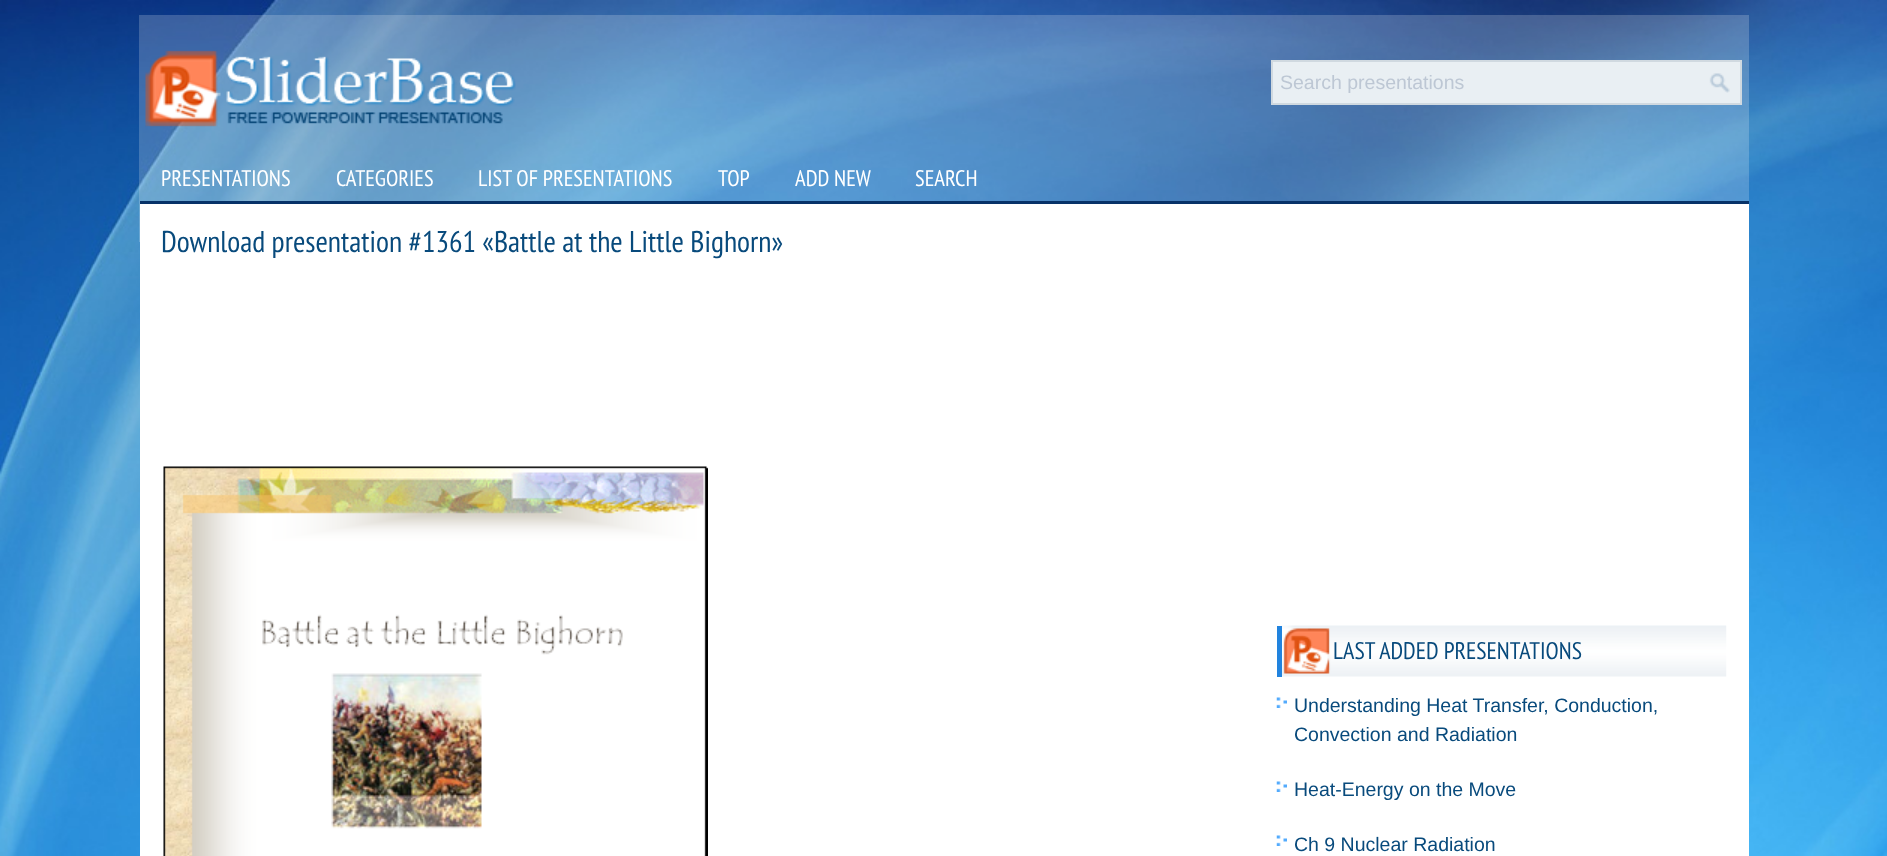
<svg xmlns="http://www.w3.org/2000/svg" width="1887" height="856" viewBox="0 0 1887 856">
  <style>
    .t1 { font: 19.5px Liberation Sans; fill: #bdc7d4; }
    .t2 { font: 22.5px PT Sans Narrow; fill: #fff; }
    .t3 { font: 30px PT Sans Narrow; fill: #084a7c; }
    .t4 { font: 24px PT Sans Narrow; fill: #084a7c; }
    .t5 { font: 19.5px Liberation Sans; fill: #084a7c; }
  </style>
  <rect width="100%" height="100%" fill="#fff"/>
  <image x="0" y="0" width="1887" height="856" href="images/1.png"/>
  <rect x="139" y="15" width="1610" height="227" fill="#ffffff33"/>
  <image x="145" y="50" width="371" height="77" href="images/2.png"/>
  <rect x="1272" y="61" width="469" height="43" fill="#e9eff3" stroke="#d0d9e0" stroke-width="2"/>
  <text x="1280" y="89" class="t1">Search presentations</text>
  <image x="1709" y="73" width="21" height="20" href="images/3.png"/>
  <rect x="140" y="201" width="1609" height="3" fill="#073268"/>
  <text x="161" y="186" class="t2">PRESENTATIONS</text>
  <text x="336" y="186" class="t2">CATEGORIES</text>
  <text x="478" y="186" class="t2">LIST OF PRESENTATIONS</text>
  <text x="718" y="186" class="t2">TOP</text>
  <text x="795" y="186" class="t2">ADD NEW</text>
  <text x="915" y="186" class="t2">SEARCH</text>
  <rect x="140" y="204" width="1609" height="652" fill="#fff"/>
  <text x="161" y="252" class="t3">Download presentation #1361 «Battle at the Little Bighorn»</text>
  <image x="163" y="466" width="545" height="390" href="images/4.png"/>
  <image x="1281" y="625" width="446" height="52" href="images/5.png"/>
  <rect x="1277" y="626" width="5" height="51" fill="#2183de"/>
  <text x="1333" y="659" class="t4">LAST ADDED PRESENTATIONS</text>
  <image x="1276" y="697" width="11" height="11" href="images/6.png"/>
  <text x="1294" y="712" class="t5">Understanding Heat Transfer, Conduction,</text>
  <text x="1294" y="741" class="t5">Convection and Radiation</text>
  <image x="1276" y="781" width="11" height="11" href="images/6.png"/>
  <text x="1294" y="796" class="t5">Heat-Energy on the Move</text>
  <image x="1276" y="835" width="11" height="11" href="images/6.png"/>
  <text x="1294" y="851" class="t5">Ch 9 Nuclear Radiation</text>
</svg>
